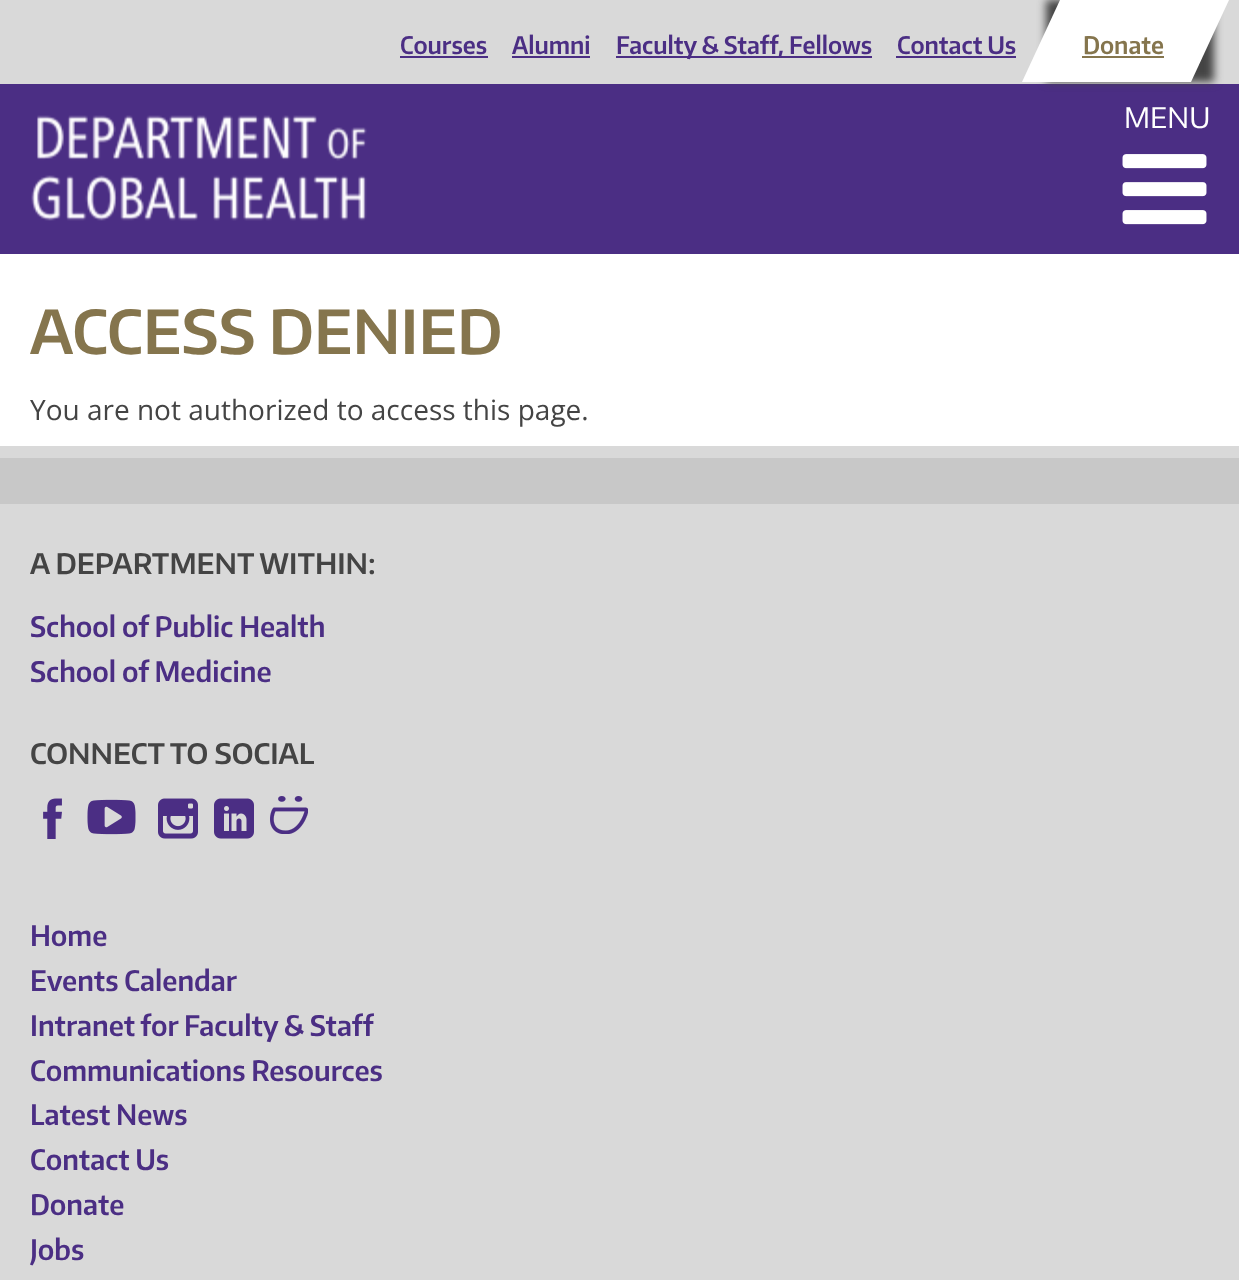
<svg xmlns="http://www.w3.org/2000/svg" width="1239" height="1280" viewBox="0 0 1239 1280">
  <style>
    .t1 { font: 600 24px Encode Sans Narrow; fill: #4b2e84; }
    .t2 { font: 600 24px Encode Sans Narrow; fill: #85754d; }
    .t3 { font: 28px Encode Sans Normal; fill: #fff; }
    .t4 { font: 600 60px Encode Sans Normal; fill: #85754d; }
    .t5 { font: 28px Open Sans; fill: #444; }
    .t6 { font: 600 28px Encode Sans Normal; fill: #444; }
    .t7 { font: 600 28px Encode Sans Narrow; fill: #4b2e84; }
  </style>
  <rect width="100%" height="100%" fill="#d9d9d9"/>
  <text x="400" y="54" class="t1">Courses</text>
  <rect x="400" y="56" width="88" height="2" fill="#4b2e84"/>
  <text x="512" y="54" class="t1">Alumni</text>
  <rect x="512" y="56" width="78" height="2" fill="#4b2e84"/>
  <rect x="616" y="56" width="256" height="2" fill="#4b2e84"/>
  <text x="616" y="54" class="t1">Faculty &amp; Staff, Fellows</text>
  <text x="897" y="54" class="t1">Contact Us</text>
  <rect x="896" y="56" width="120" height="2" fill="#4b2e84"/>
  <rect x="0" y="84" width="1239" height="170" fill="#4b2e84"/>
  <rect x="1046" y="0" width="168" height="82" fill="#444" filter="blur(4px)"/>
  <path d="M1060 0H1229L1191 82H1022Z" fill="#fff"/>
  <text x="1083" y="54" class="t2">Donate</text>
  <rect x="1082" y="56" width="82" height="2" fill="#85754d"/>
  <image x="31" y="115" width="336" height="106" href="images/1.png"/>
  <text x="1124" y="128" class="t3">MENU</text>
  <image x="1122" y="154" width="85" height="71" href="images/2.png"/>
  <rect x="0" y="254" width="1239" height="192" fill="#fff"/>
  <text x="30" y="354" class="t4">ACCESS DENIED</text>
  <text x="30" y="420" class="t5">You are not authorized to access this page.</text>
  <rect x="0" y="458" width="1239" height="46" fill="#c8c8c8"/>
  <text x="30" y="574" class="t6">A DEPARTMENT WITHIN:</text>
  <text x="30" y="637" class="t7">School of Public Health</text>
  <text x="30" y="682" class="t7">School of Medicine</text>
  <text x="30" y="764" class="t6">CONNECT TO SOCIAL</text>
  <image x="43" y="798" width="19" height="41" href="images/3.png"/>
  <image x="87" y="799" width="49" height="36" href="images/4.png"/>
  <image x="158" y="798" width="40" height="41" href="images/5.png"/>
  <image x="214" y="798" width="40" height="41" href="images/6.png"/>
  <image x="270" y="796" width="38" height="38" href="images/7.png"/>
  <text x="30" y="946" class="t7">Home</text>
  <text x="30" y="991" class="t7">Events Calendar</text>
  <text x="30" y="1036" class="t7">Intranet for Faculty &amp; Staff</text>
  <text x="30" y="1081" class="t7">Communications Resources</text>
  <text x="30" y="1125" class="t7">Latest News</text>
  <text x="30" y="1170" class="t7">Contact Us</text>
  <text x="30" y="1215" class="t7">Donate</text>
  <text x="30" y="1260" class="t7">Jobs</text>
</svg>
